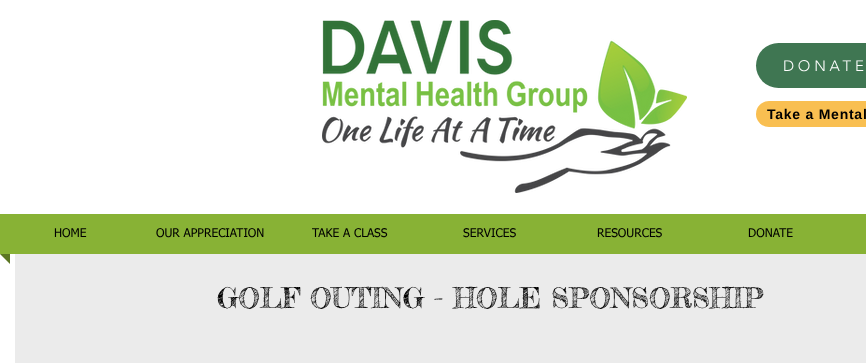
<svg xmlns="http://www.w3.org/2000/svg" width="866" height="363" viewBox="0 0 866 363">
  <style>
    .t1 { font: 300 15px 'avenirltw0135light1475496'; letter-spacing: 3.75px; fill: #fff; }
    .t2 { font: bold 14px Liberation Sans; letter-spacing: 0.75px; fill: #000; }
    .t3 { font: 12px tahoma; fill: #000; }
    .t4 { font: 28px Fredericka the Great; fill: #000; }
  </style>
  <rect width="100%" height="100%" fill="#fff"/>
  <image x="322" y="20" width="365" height="173" href="images/1.png"/>
  <rect x="756" y="43" width="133" height="45" rx="22.5" fill="#3f7652"/>
  <text x="783" y="71" class="t1">DONATE</text>
  <rect x="756" y="101" width="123" height="26" rx="13" fill="#f9bf51"/>
  <text x="767" y="119" class="t2">Take a Mental</text>
  <rect x="0" y="214" width="866" height="40" fill="#88b235"/>
  <text x="54" y="237" class="t3">HOME</text>
  <text x="156" y="237" class="t3">OUR APPRECIATION</text>
  <text x="312" y="237" class="t3">TAKE A CLASS</text>
  <text x="463" y="237" class="t3">SERVICES</text>
  <text x="597" y="237" class="t3">RESOURCES</text>
  <text x="748" y="237" class="t3">DONATE</text>
  <path d="M0 254H10V264Z" fill="#5b7623"/>
  <rect x="15" y="254" width="851" height="109" fill="#ebebeb"/>
  <text x="217" y="308" class="t4">GOLF OUTING - HOLE SPONSORSHIP</text>
</svg>
